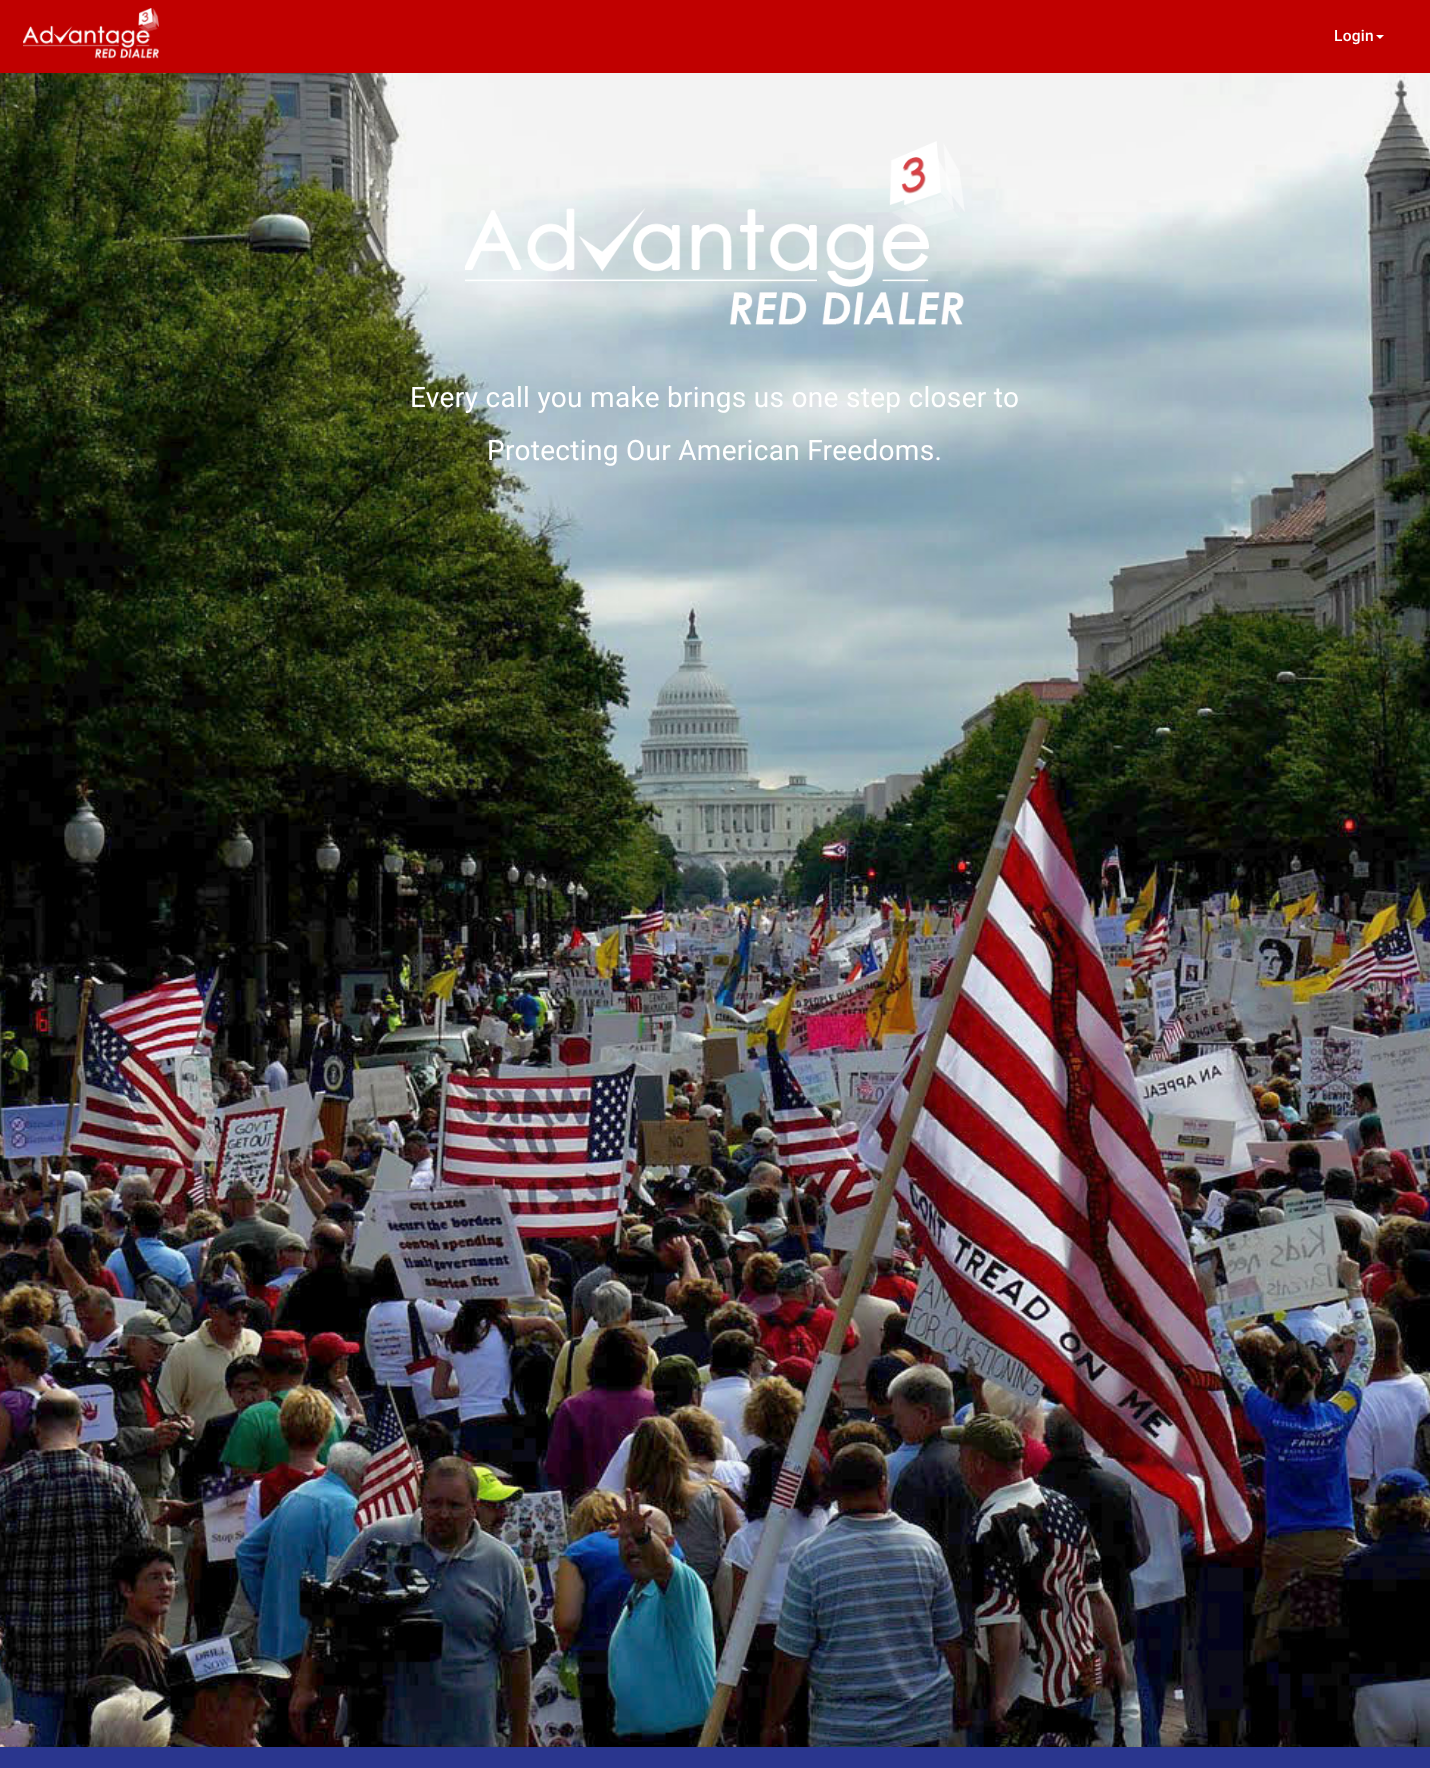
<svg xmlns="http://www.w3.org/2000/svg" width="1430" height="1768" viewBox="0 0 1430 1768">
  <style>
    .t1 { font: 500 15.5px Roboto; letter-spacing: 0.3px; fill: #fff; }
    .t2 { font: 28px Roboto; letter-spacing: 0.3px; fill: #fff; }
  </style>
  <rect width="100%" height="100%" fill="#fff"/>
  <rect x="0" y="0" width="1430" height="73" fill="#c00000"/>
  <image x="23" y="8" width="136" height="51" href="images/1.png"/>
  <text x="1334" y="41" class="t1">Login</text>
  <path d="M1376 35H1384L1380 39Z" fill="#fff"/>
  <image x="0" y="73" width="1430" height="1674" href="images/2.png"/>
  <image x="465" y="141" width="500" height="184" href="images/3.png"/>
  <text x="410" y="407" class="t2">Every call you make brings us one step closer to</text>
  <text x="487" y="460" class="t2">Protecting Our American Freedoms.</text>
  <rect x="0" y="1748" width="1430" height="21" fill="#00000033" filter="blur(1.5px)"/>
  <rect x="0" y="1747" width="1430" height="21" fill="#2a368e"/>
</svg>
